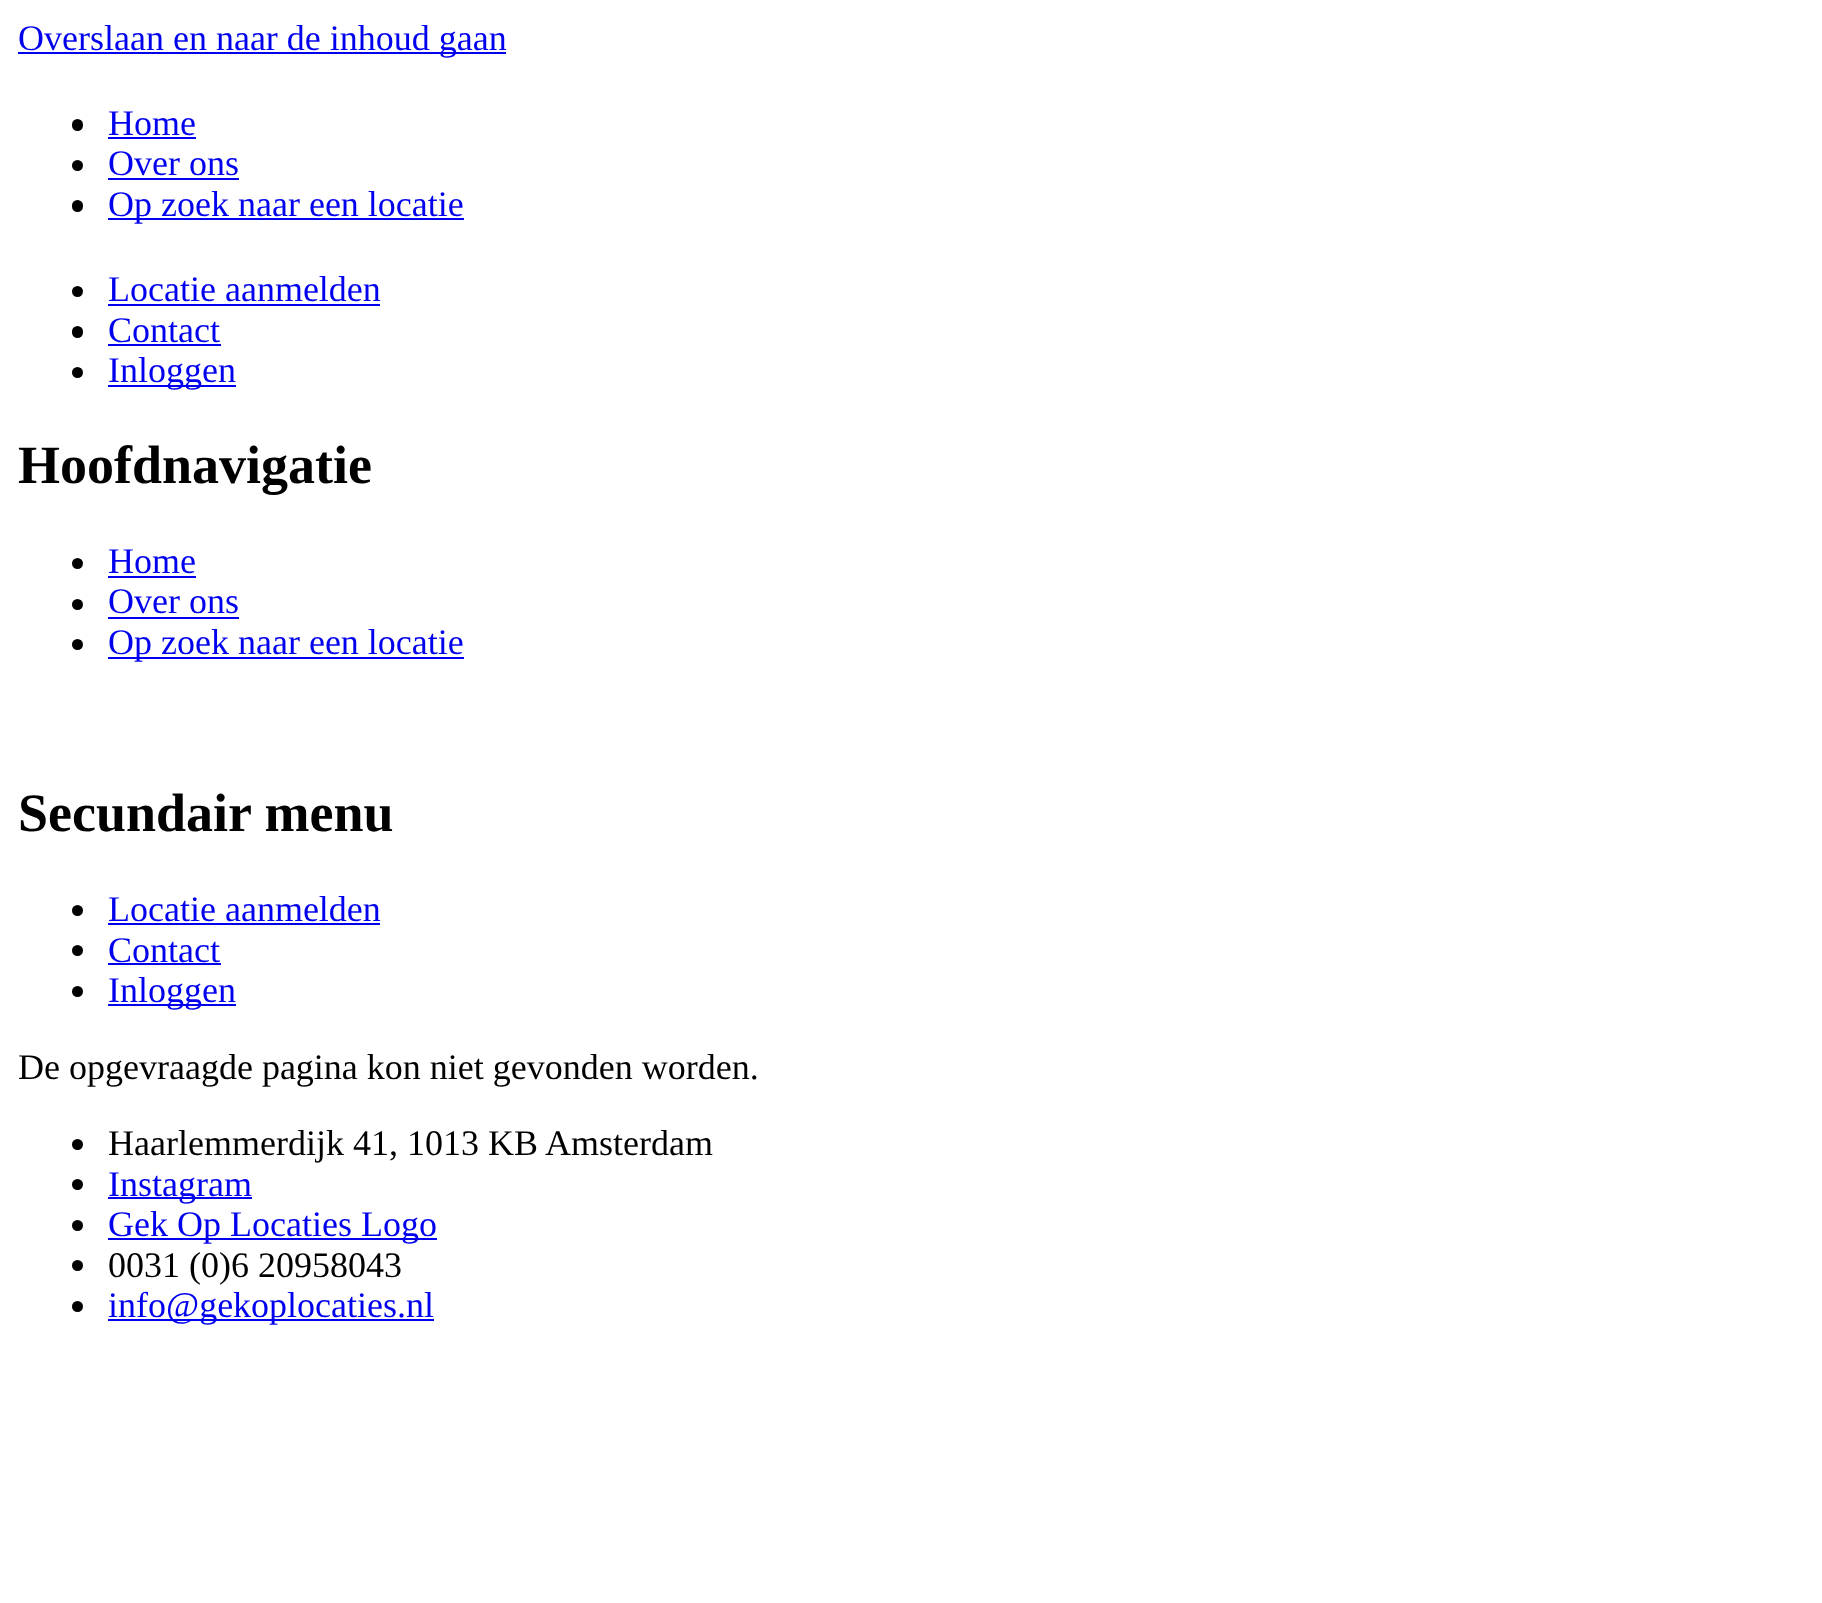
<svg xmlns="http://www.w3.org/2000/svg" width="1822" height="1603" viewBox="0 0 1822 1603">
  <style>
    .t1 { font: 36px Liberation Serif; fill: #00e; }
    .t2 { font: bold 54px Liberation Serif; fill: #000; }
    .t3 { font: 36px Liberation Serif; fill: #000; }
  </style>
  <rect width="100%" height="100%" fill="#fff"/>
  <rect x="18" y="52" width="488" height="2" fill="#00e"/>
  <text x="18" y="50" class="t1">Overslaan en naar de inhoud gaan</text>
  <rect x="72" y="119" width="11" height="12" rx="5.5" fill="#000"/>
  <text x="108" y="135" class="t1">Home</text>
  <rect x="108" y="137" width="88" height="2" fill="#00e"/>
  <circle cx="77.5" cy="165.5" r="5.5" fill="#000"/>
  <text x="108" y="175" class="t1">Over ons</text>
  <rect x="108" y="178" width="131" height="2" fill="#00e"/>
  <rect x="72" y="200" width="11" height="12" rx="5.5" fill="#000"/>
  <rect x="108" y="218" width="356" height="2" fill="#00e"/>
  <text x="108" y="216" class="t1">Op zoek naar een locatie</text>
  <circle cx="77.5" cy="291.5" r="5.5" fill="#000"/>
  <text x="108" y="301" class="t1">Locatie aanmelden</text>
  <rect x="108" y="304" width="272" height="2" fill="#00e"/>
  <rect x="72" y="326" width="11" height="12" rx="5.5" fill="#000"/>
  <text x="108" y="342" class="t1">Contact</text>
  <rect x="108" y="344" width="113" height="2" fill="#00e"/>
  <circle cx="77.5" cy="372.5" r="5.5" fill="#000"/>
  <rect x="108" y="385" width="128" height="2" fill="#00e"/>
  <text x="108" y="382" class="t1">Inloggen</text>
  <text x="18" y="483" class="t2">Hoofdnavigatie</text>
  <circle cx="77.5" cy="563.5" r="5.5" fill="#000"/>
  <text x="108" y="573" class="t1">Home</text>
  <rect x="108" y="576" width="88" height="2" fill="#00e"/>
  <circle cx="77.5" cy="604.5" r="5.5" fill="#000"/>
  <text x="108" y="613" class="t1">Over ons</text>
  <rect x="108" y="617" width="131" height="2" fill="#00e"/>
  <circle cx="77.5" cy="644.5" r="5.5" fill="#000"/>
  <rect x="108" y="657" width="356" height="2" fill="#00e"/>
  <text x="108" y="654" class="t1">Op zoek naar een locatie</text>
  <text x="18" y="831" class="t2">Secundair menu</text>
  <circle cx="77.5" cy="910.5" r="5.5" fill="#000"/>
  <text x="108" y="921" class="t1">Locatie aanmelden</text>
  <rect x="108" y="923" width="272" height="2" fill="#00e"/>
  <circle cx="77.5" cy="950.5" r="5.5" fill="#000"/>
  <text x="108" y="962" class="t1">Contact</text>
  <rect x="108" y="963" width="113" height="2" fill="#00e"/>
  <circle cx="77.5" cy="991.5" r="5.5" fill="#000"/>
  <rect x="108" y="1004" width="128" height="2" fill="#00e"/>
  <text x="108" y="1002" class="t1">Inloggen</text>
  <text x="18" y="1079" class="t3">De opgevraagde pagina kon niet gevonden worden.</text>
  <circle cx="77.5" cy="1144.5" r="5.5" fill="#000"/>
  <text x="108" y="1155" class="t3">Haarlemmerdijk 41, 1013 KB Amsterdam</text>
  <circle cx="77.5" cy="1184.5" r="5.5" fill="#000"/>
  <rect x="108" y="1197" width="144" height="2" fill="#00e"/>
  <text x="108" y="1196" class="t1">Instagram</text>
  <circle cx="77.5" cy="1225.5" r="5.5" fill="#000"/>
  <rect x="108" y="1238" width="329" height="2" fill="#00e"/>
  <text x="108" y="1236" class="t1">Gek Op Locaties Logo</text>
  <circle cx="77.5" cy="1265.5" r="5.5" fill="#000"/>
  <text x="108" y="1277" class="t3">0031 (0)6 20958043</text>
  <circle cx="77.5" cy="1306.5" r="5.5" fill="#000"/>
  <rect x="108" y="1319" width="326" height="2" fill="#00e"/>
  <text x="108" y="1317" class="t1">info@gekoplocaties.nl</text>
</svg>
